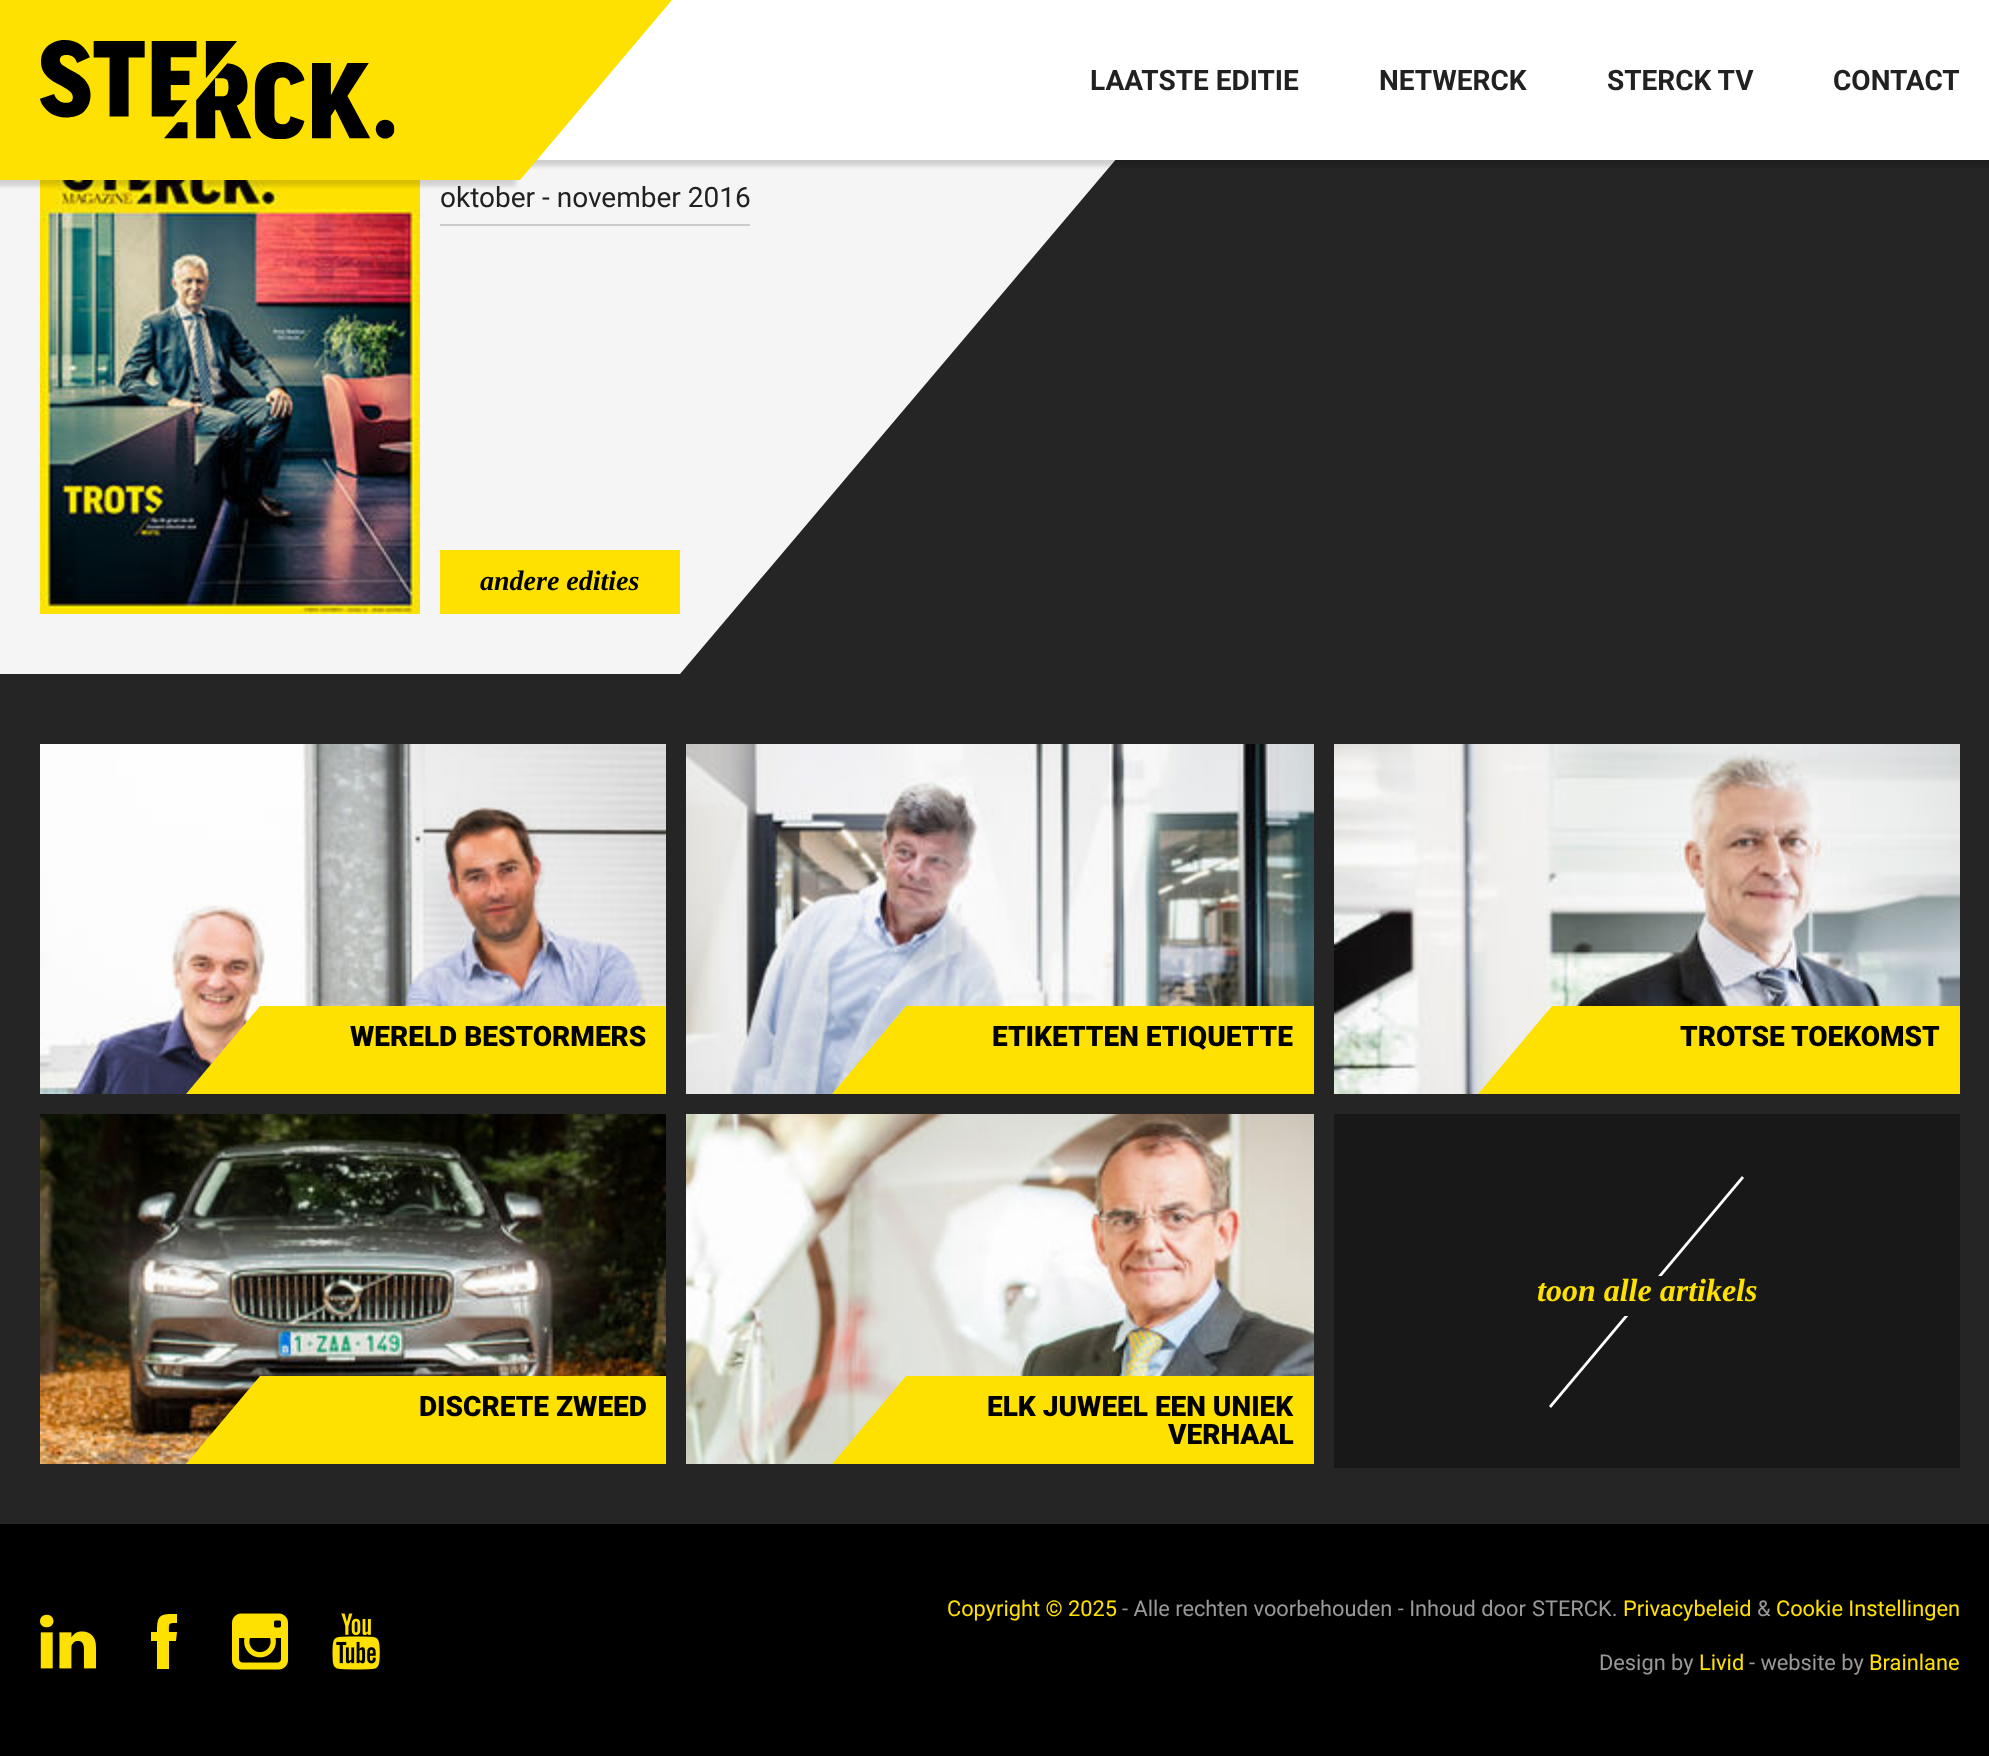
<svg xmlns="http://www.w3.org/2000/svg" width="1989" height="1756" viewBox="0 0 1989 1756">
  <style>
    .t1 { font: bold 28px Roboto; fill: #212121; }
    .t2 { font: 28px Roboto; fill: #212121; }
    .t3 { font: italic bold 28px Liberation Serif; fill: #000; }
    .t4 { font: 900 28px Roboto; fill: #000; }
    .t5 { font: italic bold 32px Liberation Serif; fill: #fee001; }
    .t6 { font: 21.8px Roboto; fill: #fee001; }
    .t7 { font: 21.8px Roboto; fill: #999; }
  </style>
  <rect width="100%" height="100%" fill="#252525"/>
  <rect x="0" y="160" width="680" height="514" fill="#f5f5f5"/>
  <image x="40" y="180" width="380" height="434" href="images/2.png"/>
  <rect x="36" y="6" width="480" height="180" fill="#00000026" filter="blur(2px)"/>
  <path d="M680 20H1234L680 674Z" fill="#f5f5f5"/>
  <rect x="-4" y="6" width="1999" height="160" fill="#00000026" filter="blur(2px)"/>
  <rect x="40" y="0" width="480" height="180" fill="#fee001"/>
  <image x="40" y="40" width="355" height="99" href="images/1.png"/>
  <rect x="-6" y="6" width="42" height="180" fill="#00000026" filter="blur(2px)"/>
  <rect x="0" y="0" width="40" height="180" fill="#fee001"/>
  <rect x="537" y="0" width="1452" height="160" fill="#fff"/>
  <path d="M520 0H672L520 180Z" fill="#fee001"/>
  <text x="1090" y="90" class="t1">LAATSTE EDITIE</text>
  <text x="1379" y="90" class="t1">NETWERCK</text>
  <text x="1607" y="90" class="t1">STERCK TV</text>
  <text x="1833" y="90" class="t1">CONTACT</text>
  <rect x="440" y="224" width="310" height="2" fill="#ccc"/>
  <text x="440" y="207" class="t2">oktober - november 2016</text>
  <rect x="440" y="550" width="240" height="64" fill="#fee001"/>
  <text x="480" y="590" class="t3">andere edities</text>
  <image x="40" y="744" width="626" height="350" href="images/3.png"/>
  <rect x="260" y="1006" width="406" height="88" fill="#fee001"/>
  <path d="M260 1094H186L260 1006Z" fill="#fee001"/>
  <text x="350" y="1046" class="t4">WERELD BESTORMERS</text>
  <image x="686" y="744" width="628" height="350" href="images/4.png"/>
  <rect x="906" y="1006" width="408" height="88" fill="#fee001"/>
  <path d="M906 1094H832L906 1006Z" fill="#fee001"/>
  <text x="992" y="1046" class="t4">ETIKETTEN ETIQUETTE</text>
  <image x="1334" y="744" width="626" height="350" href="images/5.png"/>
  <rect x="1552" y="1006" width="408" height="88" fill="#fee001"/>
  <path d="M1552 1094H1478L1552 1006Z" fill="#fee001"/>
  <text x="1680" y="1046" class="t4">TROTSE TOEKOMST</text>
  <rect x="1334" y="1114" width="626" height="354" fill="#181818"/>
  <path d="M1549 1406L1742 1176L1744 1178L1551 1408Z" fill="#fff"/>
  <rect x="1624" y="1276" width="38" height="40" fill="#181818"/>
  <text x="1537" y="1301" class="t5">toon alle artikels</text>
  <image x="40" y="1114" width="626" height="350" href="images/6.png"/>
  <rect x="260" y="1376" width="406" height="88" fill="#fee001"/>
  <path d="M260 1464H186L260 1376Z" fill="#fee001"/>
  <text x="419" y="1416" class="t4">DISCRETE ZWEED</text>
  <image x="686" y="1114" width="628" height="350" href="images/7.png"/>
  <rect x="906" y="1376" width="408" height="88" fill="#fee001"/>
  <path d="M906 1464H832L906 1376Z" fill="#fee001"/>
  <text x="987" y="1416" class="t4">ELK JUWEEL EEN UNIEK</text>
  <text x="1168" y="1444" class="t4">VERHAAL</text>
  <rect x="0" y="1524" width="1989" height="232" fill="#000"/>
  <image x="40" y="1614" width="56" height="55" href="images/8.png"/>
  <path d="M157 1669H169V1641H176L177 1632H169C169 1623 168 1623 177 1623V1614C160 1614 157 1614 157 1632H151V1641H157Z" fill="#fee001"/>
  <image x="232" y="1613" width="56" height="57" href="images/9.png"/>
  <image x="332" y="1613" width="48" height="57" href="images/10.png"/>
  <text x="947" y="1616" class="t6">Copyright © 2025</text>
  <text x="1122" y="1616" class="t7">- Alle rechten voorbehouden - Inhoud door</text>
  <text x="1532" y="1616" class="t7">STERCK.</text>
  <text x="1623" y="1616" class="t6">Privacybeleid</text>
  <text x="1757" y="1616" class="t7">&amp;</text>
  <text x="1776" y="1616" class="t6">Cookie Instellingen</text>
  <text x="1599" y="1670" class="t7">Design by</text>
  <text x="1699" y="1670" class="t6">Livid</text>
  <text x="1749" y="1670" class="t7">- website by</text>
  <text x="1869" y="1670" class="t6">Brainlane</text>
</svg>
